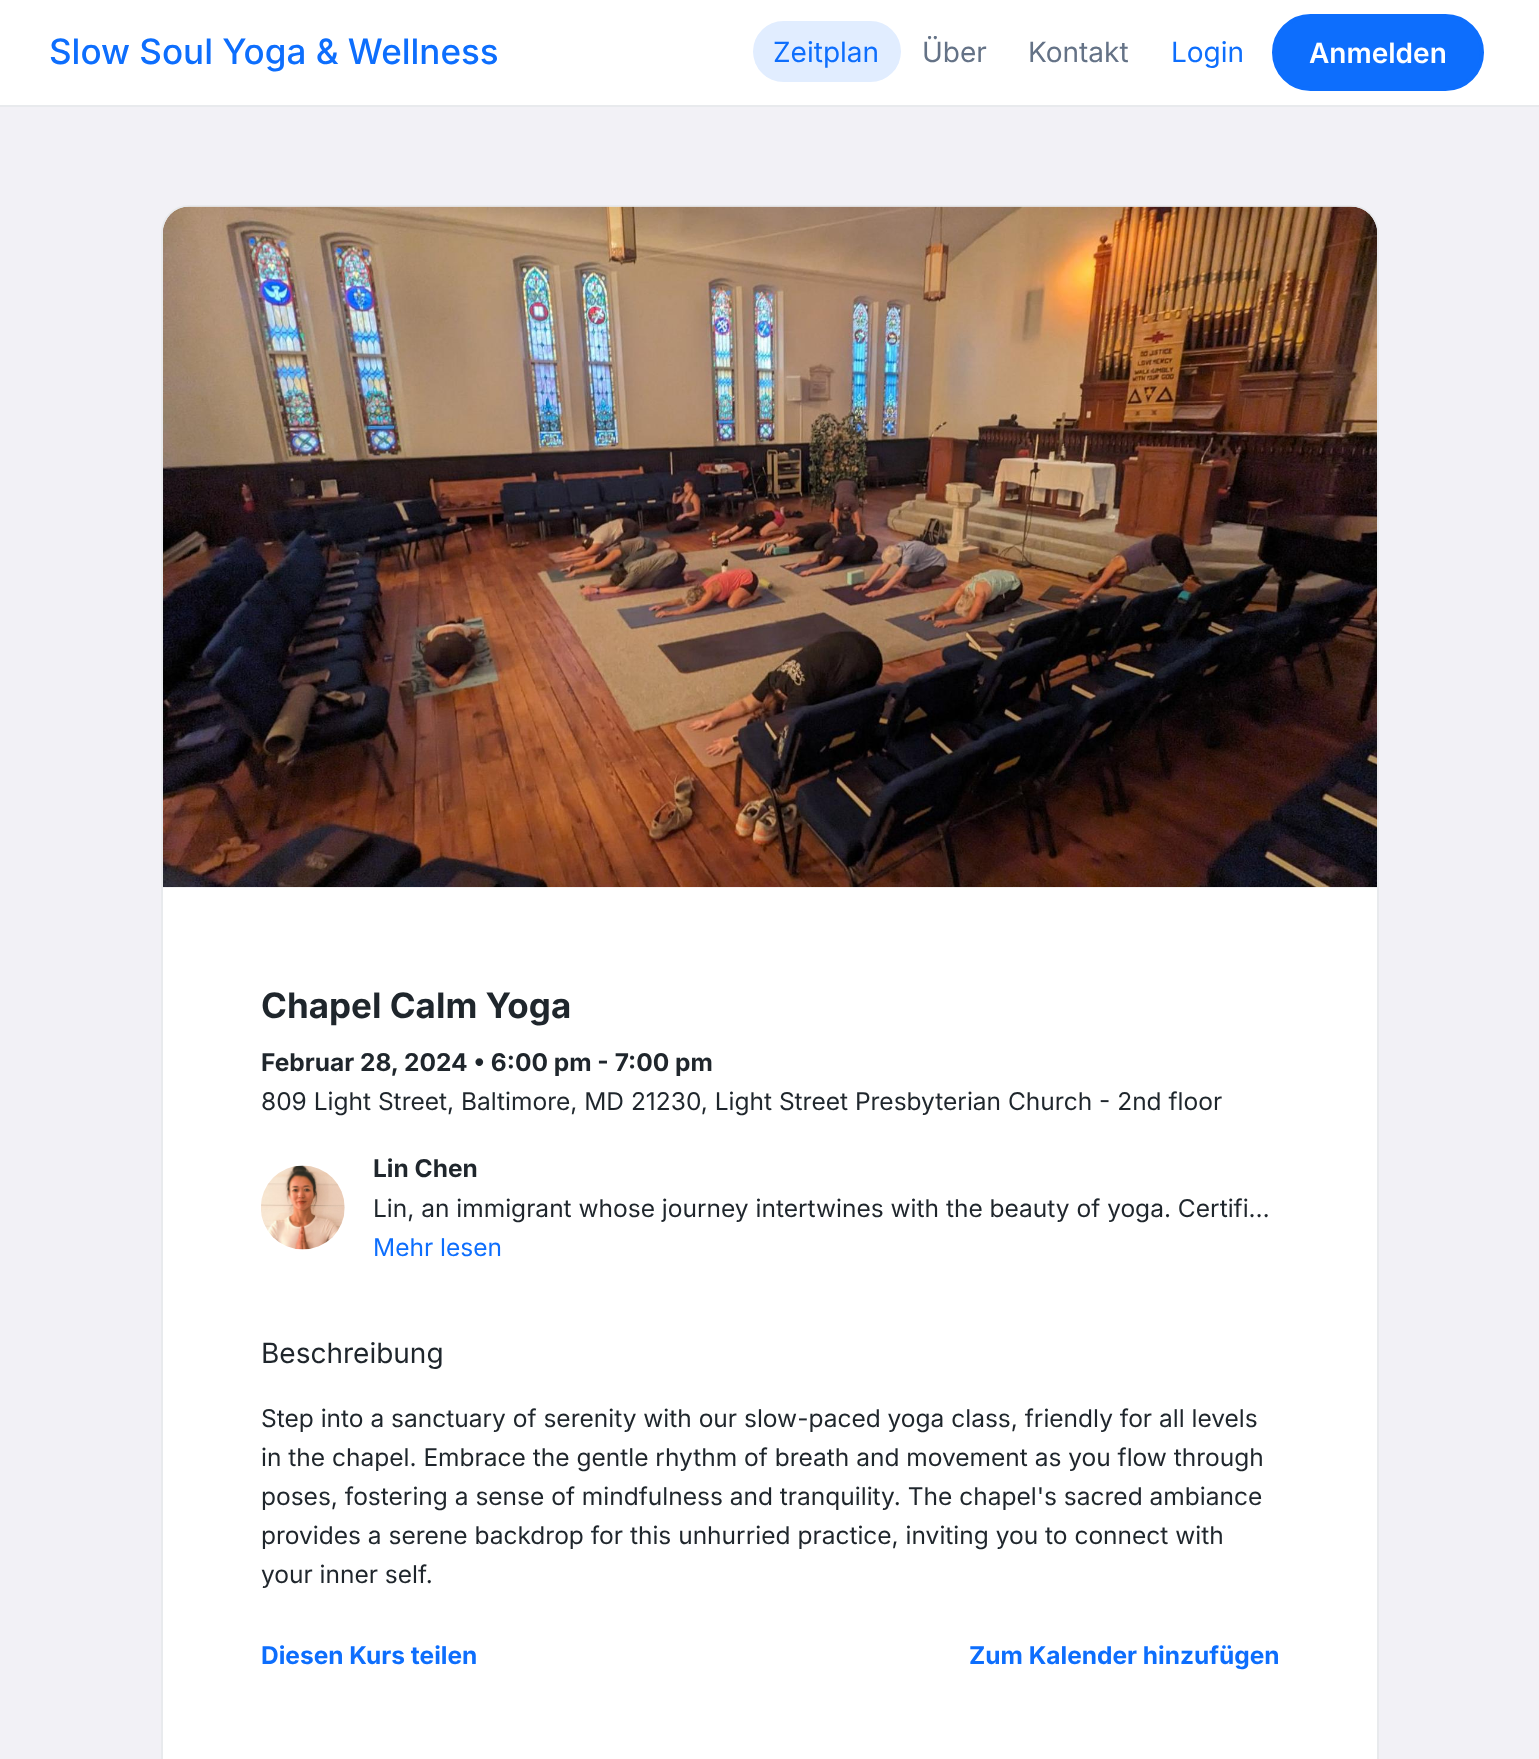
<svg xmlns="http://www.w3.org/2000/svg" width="1539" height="1759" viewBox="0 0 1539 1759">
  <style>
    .t1 { font: 500 35px Inter; fill: #0d6efd; }
    .t2 { font: 28px Inter; fill: #0d6efd; }
    .t3 { font: 28px Inter; fill: #647286; }
    .t4 { font: 600 28px Inter; fill: #fff; }
    .t5 { font: bold 35px Inter; fill: #1f262c; }
    .t6 { font: bold 24.5px Inter; fill: #1f262c; }
    .t7 { font: 24.5px Inter; fill: #1f262c; }
    .t8 { font: 24.5px Inter; fill: #0d6efd; }
    .t9 { font: 28px Inter; fill: #1f262c; }
    .t10 { font: bold 24.5px Inter; fill: #0d6efd; }
  </style>
  <rect width="100%" height="100%" fill="#f2f1f6"/>
  <rect x="0" y="0" width="1539" height="105" fill="#fff"/>
  <rect x="0" y="105" width="1539" height="2" fill="#e8eaed"/>
  <text x="49" y="64" class="t1">Slow Soul Yoga &amp; Wellness</text>
  <rect x="753" y="21" width="148" height="61" rx="30.5" fill="#e1edff"/>
  <text x="773" y="62" class="t2">Zeitplan</text>
  <text x="922" y="62" class="t3">Über</text>
  <text x="1028" y="62" class="t3">Kontakt</text>
  <text x="1171" y="62" class="t2">Login</text>
  <rect x="1274" y="16" width="208" height="73" rx="36.5" fill="#0d6efd" stroke="#0d6efd" stroke-width="4"/>
  <text x="1309" y="63" class="t4">Anmelden</text>
  <rect x="162" y="206" width="1216" height="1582" rx="27" fill="#fff" stroke="#e8eaed" stroke-width="2"/>
  <image x="163" y="206" width="1214" height="682" href="images/1.png"/>
  <text x="261" y="1018" class="t5">Chapel Calm Yoga</text>
  <text x="261" y="1071" class="t6">Februar 28, 2024 • 6:00 pm - 7:00 pm</text>
  <text x="261" y="1110" class="t7">809 Light Street, Baltimore, MD 21230, Light Street Presbyterian Church - 2nd floor</text>
  <image x="261" y="1165" width="84" height="85" href="images/2.png"/>
  <text x="373" y="1177" class="t6">Lin Chen</text>
  <text x="373" y="1217" class="t7">Lin, an immigrant whose journey intertwines with the beauty of yoga. Certifi…</text>
  <text x="373" y="1256" class="t8">Mehr lesen</text>
  <text x="261" y="1363" class="t9">Beschreibung</text>
  <text x="261" y="1427" class="t7">Step into a sanctuary of serenity with our slow-paced yoga class, friendly for all levels</text>
  <text x="261" y="1466" class="t7">in the chapel. Embrace the gentle rhythm of breath and movement as you flow through</text>
  <text x="261" y="1505" class="t7">poses, fostering a sense of mindfulness and tranquility. The chapel's sacred ambiance</text>
  <text x="261" y="1544" class="t7">provides a serene backdrop for this unhurried practice, inviting you to connect with</text>
  <text x="261" y="1583" class="t7">your inner self.</text>
  <text x="261" y="1664" class="t10">Diesen Kurs teilen</text>
  <text x="969" y="1664" class="t10">Zum Kalender hinzufügen</text>
</svg>
